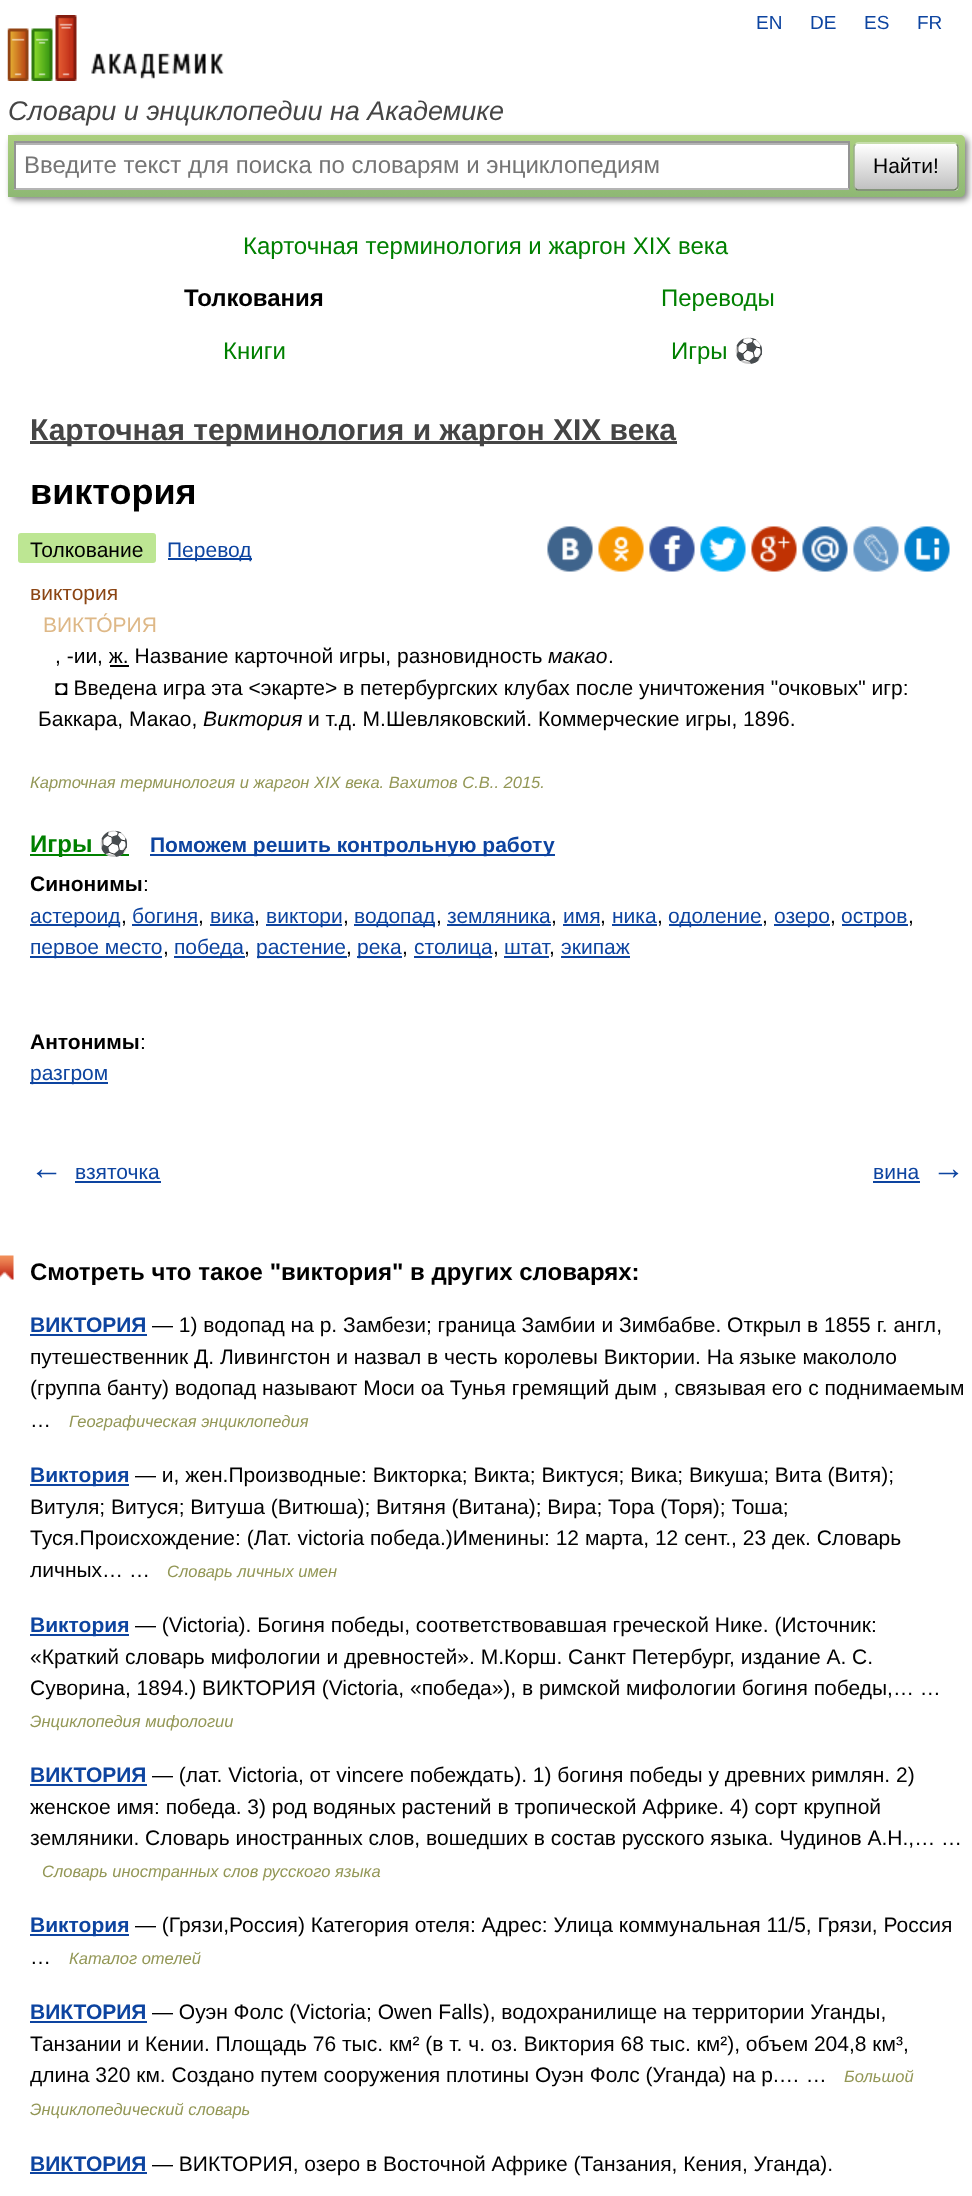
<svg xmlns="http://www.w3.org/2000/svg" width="972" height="2196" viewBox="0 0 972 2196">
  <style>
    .t1 { font: 19px Liberation Sans; fill: #0d44a0; }
    .t2 { font: italic 27px Liberation Sans; fill: #454545; }
    .t3 { font: 24px Liberation Sans; fill: #757575; }
    .t4 { font: 21px Liberation Sans; fill: #000; }
    .t5 { font: 24px Liberation Sans; fill: #008000; }
    .t6 { font: bold 24px Liberation Sans; fill: #000; }
    .t7 { font: 24px Noto Color Emoji; fill: #008000; }
    .t8 { font: bold 30px Liberation Sans; fill: #454545; }
    .t9 { font: bold 36px Liberation Sans; fill: #000; }
    .t10 { font: 21px Liberation Sans; fill: #0d44a0; }
    .t11 { font: 21px Liberation Sans; fill: #8b4513; }
    .t12 { font: 21px Liberation Sans; fill: #deb887; }
    .t13 { font: italic 21px Liberation Sans; fill: #000; }
    .t14 { font: italic 16.5px Liberation Sans; fill: #939756; }
    .t15 { font: bold 24px Liberation Sans; fill: #008000; }
    .t16 { font: bold 24px Noto Color Emoji; fill: #008000; }
    .t17 { font: bold 21px Liberation Sans; fill: #0d44a0; }
    .t18 { font: bold 21px Liberation Sans; fill: #000; }
    .t19 { font: bold 33px Liberation Sans; fill: #0d44a0; }
  </style>
  <defs>
    <linearGradient id="g1" gradientUnits="userSpaceOnUse" x1="486" y1="135" x2="486" y2="197"><stop offset="0" stop-color="#abcf7e"/><stop offset="1" stop-color="#8eb874"/></linearGradient>
    <clipPath id="clip1"><rect x="854" y="143" width="105" height="48" rx="5"/></clipPath>
    <linearGradient id="g2" gradientUnits="userSpaceOnUse" x1="906" y1="144" x2="906" y2="189"><stop offset="0" stop-color="#fff"/><stop offset="1" stop-color="#c1c1c1"/></linearGradient>
    <linearGradient id="g3" gradientUnits="userSpaceOnUse" x1="906" y1="189" x2="906" y2="234"><stop offset="0" stop-color="#fff"/><stop offset="1" stop-color="#c1c1c1"/></linearGradient>
  </defs>
  <rect width="100%" height="100%" fill="#fff"/>
  <image x="7" y="15" width="217" height="66" href="images/1.png"/>
  <text x="756" y="29" class="t1">EN</text>
  <text x="810" y="29" class="t1">DE</text>
  <text x="864" y="29" class="t1">ES</text>
  <text x="917" y="29" class="t1">FR</text>
  <text x="8" y="120" class="t2">Словари и энциклопедии на Академике</text>
  <rect x="11" y="138" width="957" height="62" rx="5" fill="#00000080" filter="blur(3px)"/>
  <path d="M8 135H960C963 135 965 137 965 140V192C965 195 963 197 960 197H8Z" fill="url(#g1)"/>
  <rect x="16" y="145" width="832" height="43" fill="#fff"/>
  <rect x="15" y="143" width="833" height="2" fill="#b3b3b3"/>
  <rect x="14" y="141" width="835" height="2" fill="#949494"/>
  <rect x="848" y="141" width="2" height="48" fill="#949494"/>
  <rect x="14" y="188" width="835" height="2" fill="#b4b4b4"/>
  <rect x="14" y="141" width="2" height="48" fill="#949494"/>
  <text x="24" y="173" class="t3">Введите текст для поиска по словарям и энциклопедиям</text>
  <g clip-path="url(#clip1)">
    <rect x="854" y="144" width="105" height="45" fill="url(#g2)"/>
    <rect x="854" y="189" width="105" height="2" fill="url(#g3)"/>
  </g>
  <path d="M855.5 144.5C856 143.5 857 143 858 143H954C955 143 956 143.5 956.5 144.5" fill="none" stroke="#d1e4bc" stroke-width="1.5"/>
  <path d="M956.5 144.5C957.5 145 958 146 958 147V186C958 187 957.5 188 956.5 188.5" fill="none" stroke="#7a8e69" stroke-width="1.5"/>
  <path d="M956.5 188.5C956 189.5 955 190 954 190H858C857 190 856 189.5 855.5 188.5" fill="none" stroke="#5d7250" stroke-width="1.5"/>
  <path d="M855.5 188.5C854.5 188 854 187 854 186V147C854 146 854.5 145 855.5 144.5" fill="none" stroke="#9aae89" stroke-width="1.5"/>
  <text x="873" y="173" class="t4">Найти!</text>
  <text x="243" y="254" class="t5">Карточная терминология и жаргон XIX века</text>
  <text x="184" y="306" class="t6">Толкования</text>
  <text x="661" y="306" class="t5">Переводы</text>
  <text x="223" y="359" class="t5">Книги</text>
  <text x="671" y="359" class="t5">Игры</text>
  <text x="734" y="359" class="t7">⚽</text>
  <rect x="30" y="441" width="647" height="3" fill="#454545"/>
  <text x="30" y="440" class="t8">Карточная терминология и жаргон XIX века</text>
  <text x="30" y="504" class="t9">виктория</text>
  <rect x="18" y="533" width="138" height="30" rx="3" fill="#bde693"/>
  <text x="30" y="557" class="t4">Толкование</text>
  <rect x="168" y="558" width="84" height="2" fill="#0d44a0"/>
  <text x="167" y="557" class="t10">Перевод</text>
  <image x="547" y="526" width="46" height="46" href="images/2.png"/>
  <image x="598" y="526" width="46" height="46" href="images/3.png"/>
  <image x="649" y="526" width="46" height="46" href="images/4.png"/>
  <image x="700" y="526" width="46" height="46" href="images/5.png"/>
  <image x="751" y="526" width="46" height="46" href="images/6.png"/>
  <image x="802" y="526" width="46" height="46" href="images/7.png"/>
  <image x="853" y="526" width="46" height="46" href="images/8.png"/>
  <image x="904" y="526" width="46" height="46" href="images/9.png"/>
  <text x="30" y="600" class="t11">виктория</text>
  <text x="43" y="632" class="t12">ВИКТО́РИЯ</text>
  <text x="55" y="663" class="t4">, -ии, ж. Название карточной игры, разновидность</text>
  <text x="548" y="663" class="t13">макао</text>
  <text x="608" y="663" class="t4">.</text>
  <rect x="110" y="665" width="19" height="2" fill="#000"/>
  <text x="55" y="695" class="t4">◘ Введена игра эта &lt;экарте&gt; в петербургских клубах после уничтожения "очковых" игр:</text>
  <text x="38" y="726" class="t4">Баккара, Макао,</text>
  <text x="203" y="726" class="t13">Виктория</text>
  <text x="308" y="726" class="t4">и т.д. М.Шевляковский. Коммерческие игры, 1896.</text>
  <text x="30" y="788" class="t14">Карточная терминология и жаргон XIX века. Вахитов С.В.. 2015.</text>
  <rect x="30" y="854" width="99" height="2" fill="#008000"/>
  <text x="30" y="852" class="t15">Игры</text>
  <text x="99" y="852" class="t16">⚽</text>
  <rect x="150" y="854" width="405" height="2" fill="#0d44a0"/>
  <text x="150" y="852" class="t17">Поможем решить контрольную работу</text>
  <text x="30" y="891" class="t18">Синонимы</text>
  <text x="143" y="891" class="t4">:</text>
  <rect x="30" y="924" width="90" height="2" fill="#0d44a0"/>
  <text x="30" y="923" class="t10">астероид</text>
  <text x="121" y="923" class="t4">,</text>
  <text x="132" y="923" class="t10">богиня</text>
  <rect x="132" y="924" width="66" height="2" fill="#0d44a0"/>
  <text x="198" y="923" class="t4">,</text>
  <text x="210" y="923" class="t10">вика</text>
  <rect x="210" y="924" width="44" height="2" fill="#0d44a0"/>
  <text x="254" y="923" class="t4">,</text>
  <rect x="266" y="924" width="76" height="2" fill="#0d44a0"/>
  <text x="266" y="923" class="t10">виктори</text>
  <text x="343" y="923" class="t4">,</text>
  <rect x="354" y="924" width="81" height="2" fill="#0d44a0"/>
  <text x="354" y="923" class="t10">водопад</text>
  <text x="436" y="923" class="t4">,</text>
  <text x="447" y="923" class="t10">земляника</text>
  <rect x="447" y="924" width="104" height="2" fill="#0d44a0"/>
  <text x="551" y="923" class="t4">,</text>
  <text x="563" y="923" class="t10">имя</text>
  <rect x="563" y="924" width="37" height="2" fill="#0d44a0"/>
  <text x="600" y="923" class="t4">,</text>
  <text x="612" y="923" class="t10">ника</text>
  <rect x="612" y="924" width="45" height="2" fill="#0d44a0"/>
  <text x="657" y="923" class="t4">,</text>
  <rect x="669" y="924" width="93" height="2" fill="#0d44a0"/>
  <text x="668" y="923" class="t10">одоление</text>
  <text x="762" y="923" class="t4">,</text>
  <rect x="774" y="924" width="56" height="2" fill="#0d44a0"/>
  <text x="774" y="923" class="t10">озеро</text>
  <text x="830" y="923" class="t4">,</text>
  <rect x="842" y="924" width="66" height="2" fill="#0d44a0"/>
  <text x="841" y="923" class="t10">остров</text>
  <text x="908" y="923" class="t4">,</text>
  <rect x="30" y="956" width="132" height="2" fill="#0d44a0"/>
  <text x="30" y="954" class="t10">первое место</text>
  <text x="163" y="954" class="t4">,</text>
  <rect x="174" y="956" width="71" height="2" fill="#0d44a0"/>
  <text x="174" y="954" class="t10">победа</text>
  <text x="244" y="954" class="t4">,</text>
  <rect x="257" y="956" width="90" height="2" fill="#0d44a0"/>
  <text x="256" y="954" class="t10">растение</text>
  <text x="346" y="954" class="t4">,</text>
  <rect x="357" y="956" width="45" height="2" fill="#0d44a0"/>
  <text x="357" y="954" class="t10">река</text>
  <text x="402" y="954" class="t4">,</text>
  <rect x="414" y="956" width="78" height="2" fill="#0d44a0"/>
  <text x="414" y="954" class="t10">столица</text>
  <text x="493" y="954" class="t4">,</text>
  <text x="504" y="954" class="t10">штат</text>
  <rect x="504" y="956" width="45" height="2" fill="#0d44a0"/>
  <text x="549" y="954" class="t4">,</text>
  <text x="561" y="954" class="t10">экипаж</text>
  <rect x="561" y="956" width="69" height="2" fill="#0d44a0"/>
  <text x="30" y="1049" class="t18">Антонимы</text>
  <text x="140" y="1049" class="t4">:</text>
  <rect x="30" y="1082" width="78" height="2" fill="#0d44a0"/>
  <text x="30" y="1080" class="t10">разгром</text>
  <text x="30" y="1179" class="t19">←</text>
  <text x="75" y="1179" class="t10">взяточка</text>
  <rect x="75" y="1181" width="86" height="2" fill="#0d44a0"/>
  <text x="873" y="1179" class="t10">вина</text>
  <rect x="873" y="1181" width="47" height="2" fill="#0d44a0"/>
  <text x="932" y="1179" class="t19">→</text>
  <image x="0" y="1255" width="14" height="25" href="images/10.png"/>
  <text x="30" y="1280" class="t6">Смотреть что такое "виктория" в других словарях:</text>
  <text x="30" y="1332" class="t17">ВИКТОРИЯ</text>
  <rect x="30" y="1334" width="117" height="2" fill="#0d44a0"/>
  <text x="152" y="1332" class="t4">— 1) водопад на р. Замбези; граница Замбии и Зимбабве. Открыл в 1855 г. англ,</text>
  <text x="30" y="1364" class="t4">путешественник Д. Ливингстон и назвал в честь королевы Виктории. На языке макололо</text>
  <text x="30" y="1395" class="t4">(группа банту) водопад называют Моси оа Тунья гремящий дым , связывая его с поднимаемым</text>
  <text x="30" y="1427" class="t4">…</text>
  <text x="69" y="1427" class="t14">Географическая энциклопедия</text>
  <rect x="30" y="1484" width="99" height="2" fill="#0d44a0"/>
  <text x="30" y="1482" class="t17">Виктория</text>
  <text x="135" y="1482" class="t4">— и, жен.Производные: Викторка; Викта; Виктуся; Вика; Викуша; Вита (Витя);</text>
  <text x="30" y="1514" class="t4">Витуля; Витуся; Витуша (Витюша); Витяня (Витана); Вира; Тора (Торя); Тоша;</text>
  <text x="30" y="1545" class="t4">Туся.Происхождение: (Лат. victoria победа.)Именины: 12 марта, 12 сент., 23 дек. Словарь</text>
  <text x="30" y="1577" class="t4">личных… …</text>
  <text x="167" y="1577" class="t14">Словарь личных имен</text>
  <rect x="30" y="1634" width="99" height="2" fill="#0d44a0"/>
  <text x="30" y="1632" class="t17">Виктория</text>
  <text x="135" y="1632" class="t4">— (Victoria). Богиня победы, соответствовавшая греческой Нике. (Источник:</text>
  <text x="30" y="1664" class="t4">«Краткий словарь мифологии и древностей». М.Корш. Санкт Петербург, издание А. С.</text>
  <text x="30" y="1695" class="t4">Суворина, 1894.) ВИКТОРИЯ (Victoria, «победа»), в римской мифологии богиня победы,… …</text>
  <text x="30" y="1727" class="t14">Энциклопедия мифологии</text>
  <text x="30" y="1782" class="t17">ВИКТОРИЯ</text>
  <rect x="30" y="1784" width="117" height="2" fill="#0d44a0"/>
  <text x="152" y="1782" class="t4">— (лат. Victoria, от vincere побеждать). 1) богиня победы у древних римлян. 2)</text>
  <text x="30" y="1814" class="t4">женское имя: победа. 3) род водяных растений в тропической Африке. 4) сорт крупной</text>
  <text x="30" y="1845" class="t4">земляники. Словарь иностранных слов, вошедших в состав русского языка. Чудинов А.Н.,… …</text>
  <text x="42" y="1877" class="t14">Словарь иностранных слов русского языка</text>
  <rect x="30" y="1934" width="99" height="2" fill="#0d44a0"/>
  <text x="30" y="1932" class="t17">Виктория</text>
  <text x="135" y="1932" class="t4">— (Грязи,Россия) Категория отеля: Адрес: Улица коммунальная 11/5, Грязи, Россия</text>
  <text x="30" y="1964" class="t4">…</text>
  <text x="69" y="1964" class="t14">Каталог отелей</text>
  <text x="30" y="2019" class="t17">ВИКТОРИЯ</text>
  <rect x="30" y="2021" width="117" height="2" fill="#0d44a0"/>
  <text x="152" y="2019" class="t4">— Оуэн Фолс (Victoria; Owen Falls), водохранилище на территории Уганды,</text>
  <text x="30" y="2051" class="t4">Танзании и Кении. Площадь 76 тыс. км² (в т. ч. оз. Виктория 68 тыс. км²), объем 204,8 км³,</text>
  <text x="30" y="2082" class="t4">длина 320 км. Создано путем сооружения плотины Оуэн Фолс (Уганда) на р.… …</text>
  <text x="844" y="2082" class="t14">Большой</text>
  <text x="30" y="2115" class="t14">Энциклопедический словарь</text>
  <text x="30" y="2171" class="t17">ВИКТОРИЯ</text>
  <rect x="30" y="2172" width="117" height="2" fill="#0d44a0"/>
  <text x="152" y="2171" class="t4">— ВИКТОРИЯ, озеро в Восточной Африке (Танзания, Кения, Уганда).</text>
</svg>
